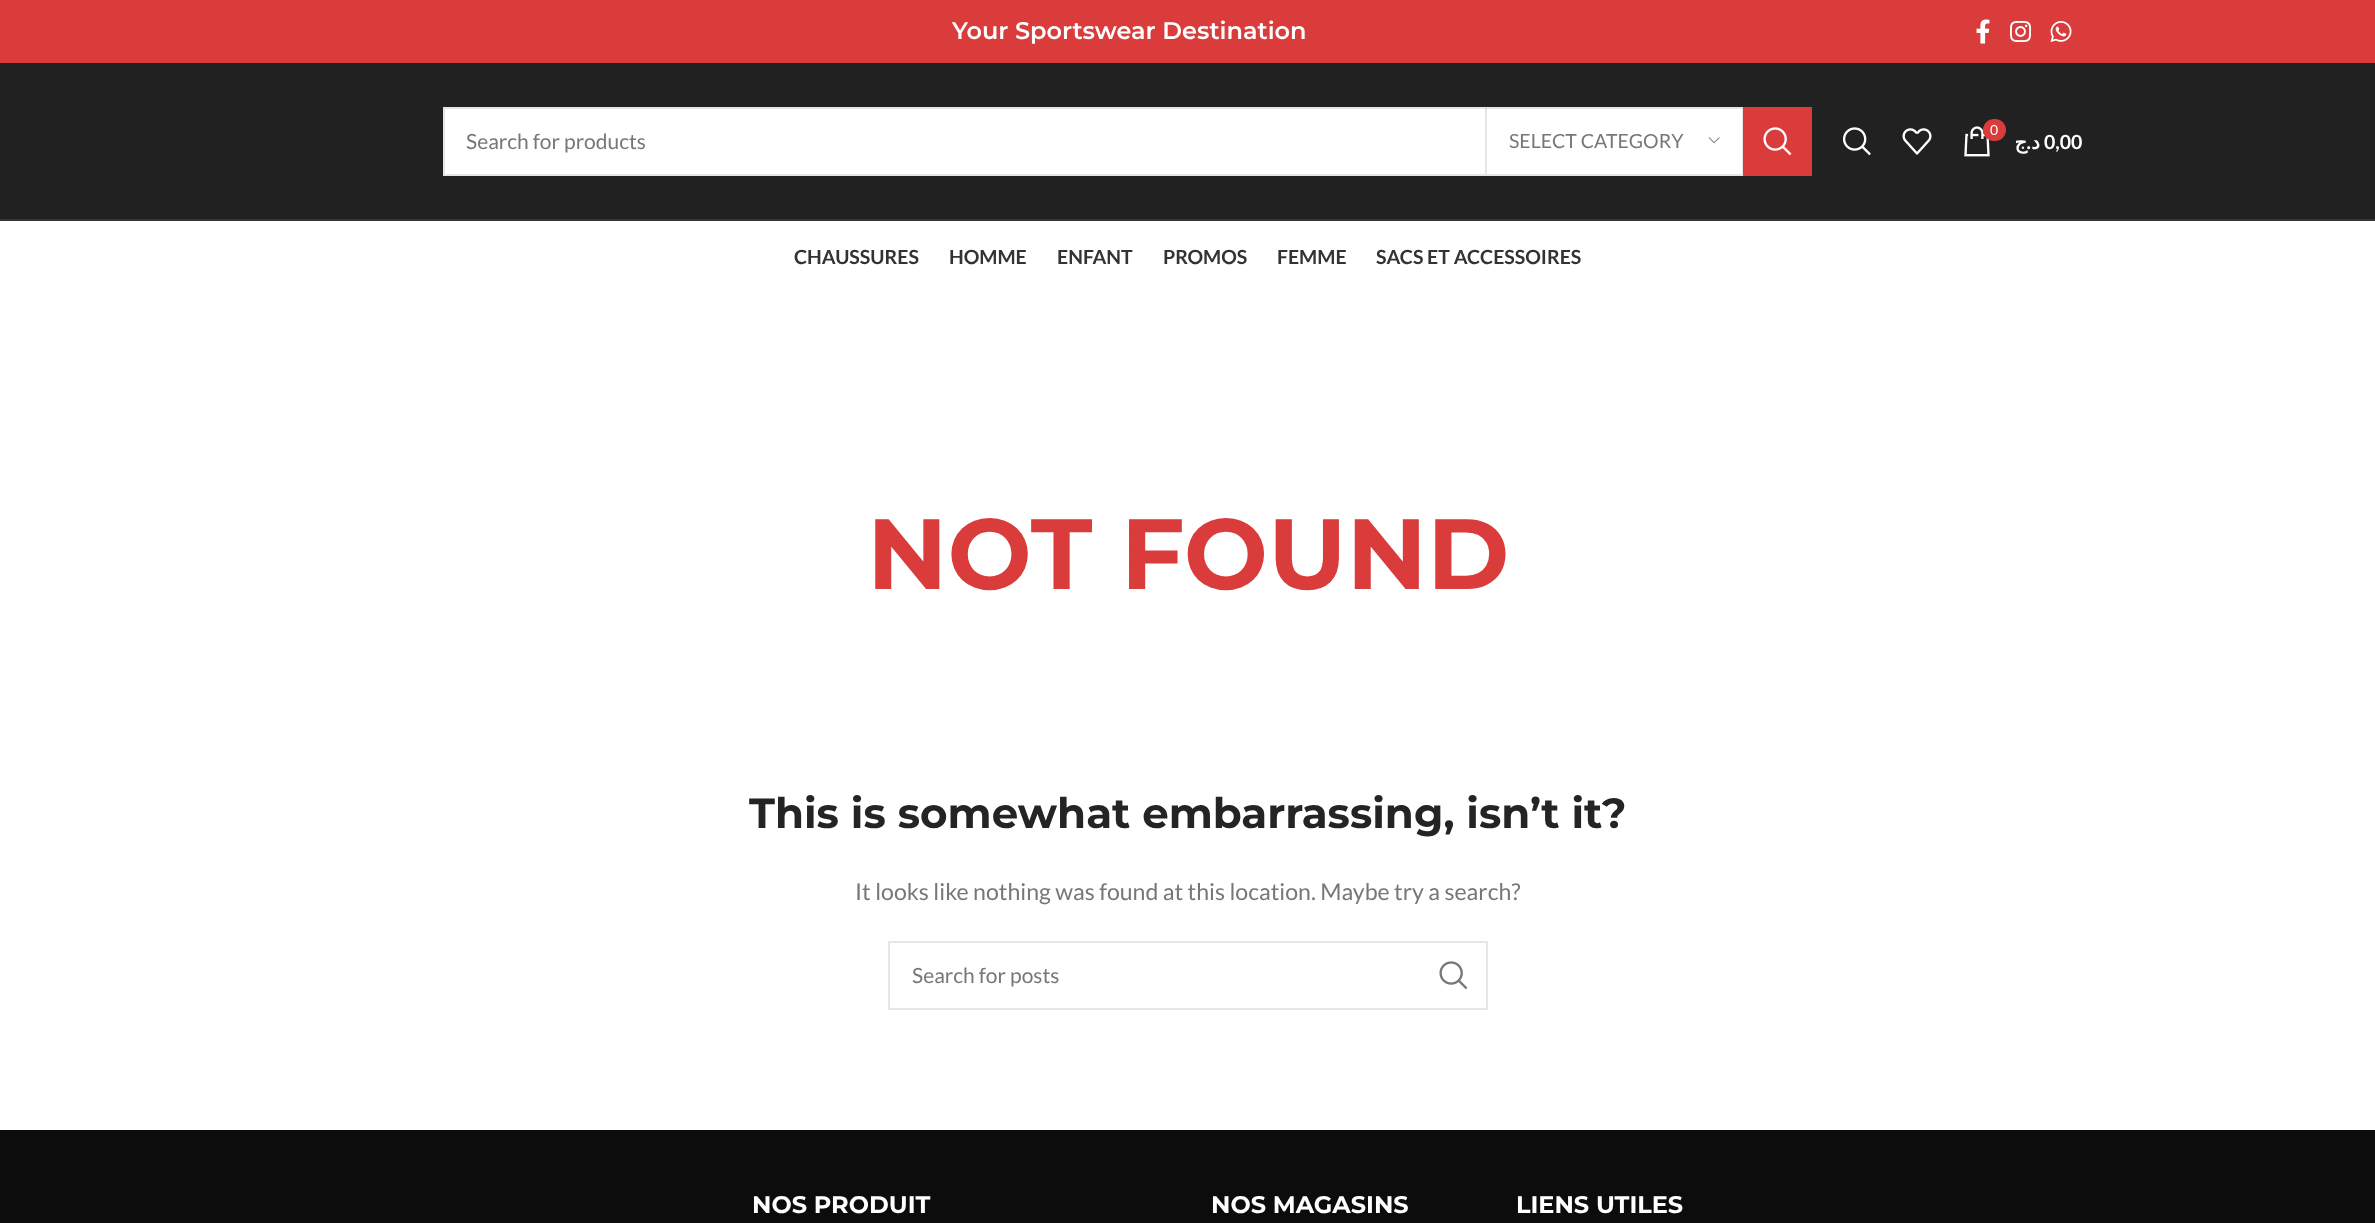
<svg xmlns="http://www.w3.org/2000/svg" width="2375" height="1223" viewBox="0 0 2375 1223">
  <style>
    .t1 { font: 600 24px Montserrat; fill: #fff; }
    .t2 { font: 21px Lato; fill: #777; }
    .t3 { font: 19.5px Lato; fill: #777; }
    .t4 { font: 14px Lato; fill: #fff; }
    .t5 { font: bold 19.5px DejaVu Sans; direction: rtl; fill: #fff; }
    .t6 { font: bold 19.5px Lato; direction: rtl; fill: #fff; }
    .t7 { font: bold 19.5px Lato; fill: #fff; }
    .t8 { font: bold 19.5px Lato; fill: #333; }
    .t9 { font: bold 99.75px Montserrat; fill: #da3c3c; }
    .t10 { font: bold 42px Montserrat; fill: #242424; }
    .t11 { font: 23.1px Lato; fill: #777; }
    .t12 { font: bold 24px Montserrat; fill: #fff; }
  </style>
  <rect width="100%" height="100%" fill="#fff"/>
  <rect x="0" y="0" width="2375" height="63" fill="#da3c3c"/>
  <text x="952" y="39" class="t1">Your Sportswear Destination</text>
  <image x="1976" y="19" width="14" height="25" href="images/1.png"/>
  <image x="2010" y="21" width="21" height="21" href="images/2.png"/>
  <image x="2050" y="21" width="22" height="21" href="images/3.png"/>
  <rect x="0" y="63" width="2375" height="156" fill="#212121"/>
  <rect x="0" y="219" width="2375" height="2" fill="#343434"/>
  <rect x="445" y="109" width="1298" height="65" fill="#fff"/>
  <rect x="444" y="108" width="1367" height="67" fill="none" stroke="#e6e6e6" stroke-width="2"/>
  <text x="466" y="149" class="t2">Search for products</text>
  <rect x="1742" y="108" width="1" height="66" fill="#0000001a"/>
  <rect x="1485" y="108" width="2" height="66" fill="#0000001a"/>
  <text x="1509" y="148" class="t3">SELECT CATEGORY</text>
  <image x="1708" y="137" width="12" height="7" href="images/4.png"/>
  <rect x="1743" y="107" width="69" height="69" fill="#da3c3c"/>
  <image x="1763" y="127" width="29" height="29" href="images/5.png"/>
  <image x="1843" y="127" width="28" height="29" href="images/6.png"/>
  <image x="1902" y="128" width="30" height="27" href="images/7.png"/>
  <image x="1964" y="126" width="26" height="31" href="images/8.png"/>
  <rect x="1983" y="119" width="23" height="22" rx="11" fill="#da3c3c"/>
  <text x="1990" y="135" class="t4">0</text>
  <text x="2027" y="149" class="t5">ج</text>
  <text x="2031" y="149" class="t6">.</text>
  <text x="2040" y="149" class="t5">د</text>
  <text x="2044" y="149" class="t7">0,00</text>
  <text x="794" y="264" class="t8">CHAUSSURES</text>
  <text x="949" y="264" class="t8">HOMME</text>
  <text x="1057" y="264" class="t8">ENFANT</text>
  <text x="1163" y="264" class="t8">PROMOS</text>
  <text x="1277" y="264" class="t8">FEMME</text>
  <text x="1376" y="264" class="t8">SACS ET ACCESSOIRES</text>
  <text x="867" y="589" class="t9">NOT FOUND</text>
  <text x="749" y="828" class="t10">This is somewhat embarrassing, isn’t it?</text>
  <text x="855" y="900" class="t11">It looks like nothing was found at this location. Maybe try a search?</text>
  <rect x="889" y="942" width="598" height="67" fill="none" stroke="#e6e6e6" stroke-width="2"/>
  <text x="912" y="983" class="t2">Search for posts</text>
  <image x="1439" y="961" width="29" height="29" href="images/9.png"/>
  <rect x="0" y="1130" width="2375" height="93" fill="#0c0c0c"/>
  <text x="752" y="1213" class="t12">NOS PRODUIT</text>
  <text x="1211" y="1213" class="t12">NOS MAGASINS</text>
  <text x="1516" y="1213" class="t12">LIENS UTILES</text>
</svg>
